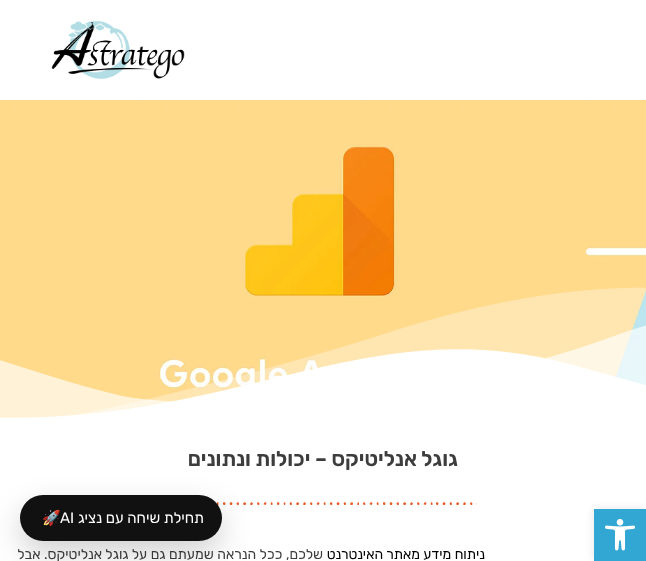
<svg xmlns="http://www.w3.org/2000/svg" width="646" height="561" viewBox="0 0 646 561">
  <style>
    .t1 { font: 600 21px Rubik; direction: rtl; fill: #3d3d3d; }
    .t2 { font: 14px Rubik; direction: rtl; fill: #000; }
    .t3 { font: 14px Rubik; direction: rtl; fill: #3d3d3d; }
    .t4 { font: 15px Rubik; direction: rtl; fill: #fff; }
    .t5 { font: 15px Rubik; fill: #fff; }
    .t6 { font: 15px Noto Color Emoji; fill: #fff; }
  </style>
  <rect width="100%" height="100%" fill="#fff"/>
  <image x="51" y="20" width="134" height="60" href="images/1.png"/>
  <rect x="594" y="509" width="52" height="52" fill="#0000001a" filter="blur(5px)"/>
  <rect x="594" y="509" width="52" height="52" fill="#33a7d4"/>
  <image x="605" y="519" width="30" height="32" href="images/2.png"/>
  <image x="0" y="100" width="646" height="318" href="images/3.png"/>
  <image x="0" y="287" width="646" height="149" href="images/4.png"/>
  <text x="458" y="466" class="t1">גוגל אנליטיקס – יכולות ונתונים</text>
  <image x="216" y="502" width="261" height="3" href="images/5.png"/>
  <text x="485" y="559" class="t2">ניתוח מידע מאתר האינטרנט</text>
  <text x="323" y="559" word-spacing="0.25" class="t3">שלכם, ככל הנראה שמעתם גם על גוגל אנליטיקס. אבל</text>
  <rect x="20" y="507" width="202" height="46" rx="23" fill="#0000002e" filter="blur(15px)"/>
  <rect x="20" y="495" width="202" height="46" rx="23" fill="#111"/>
  <text x="204" y="523" class="t4">תחילת שיחה עם נציג</text>
  <text x="60" y="523" class="t5">AI</text>
  <text x="42" y="523" class="t6">🚀</text>
</svg>
